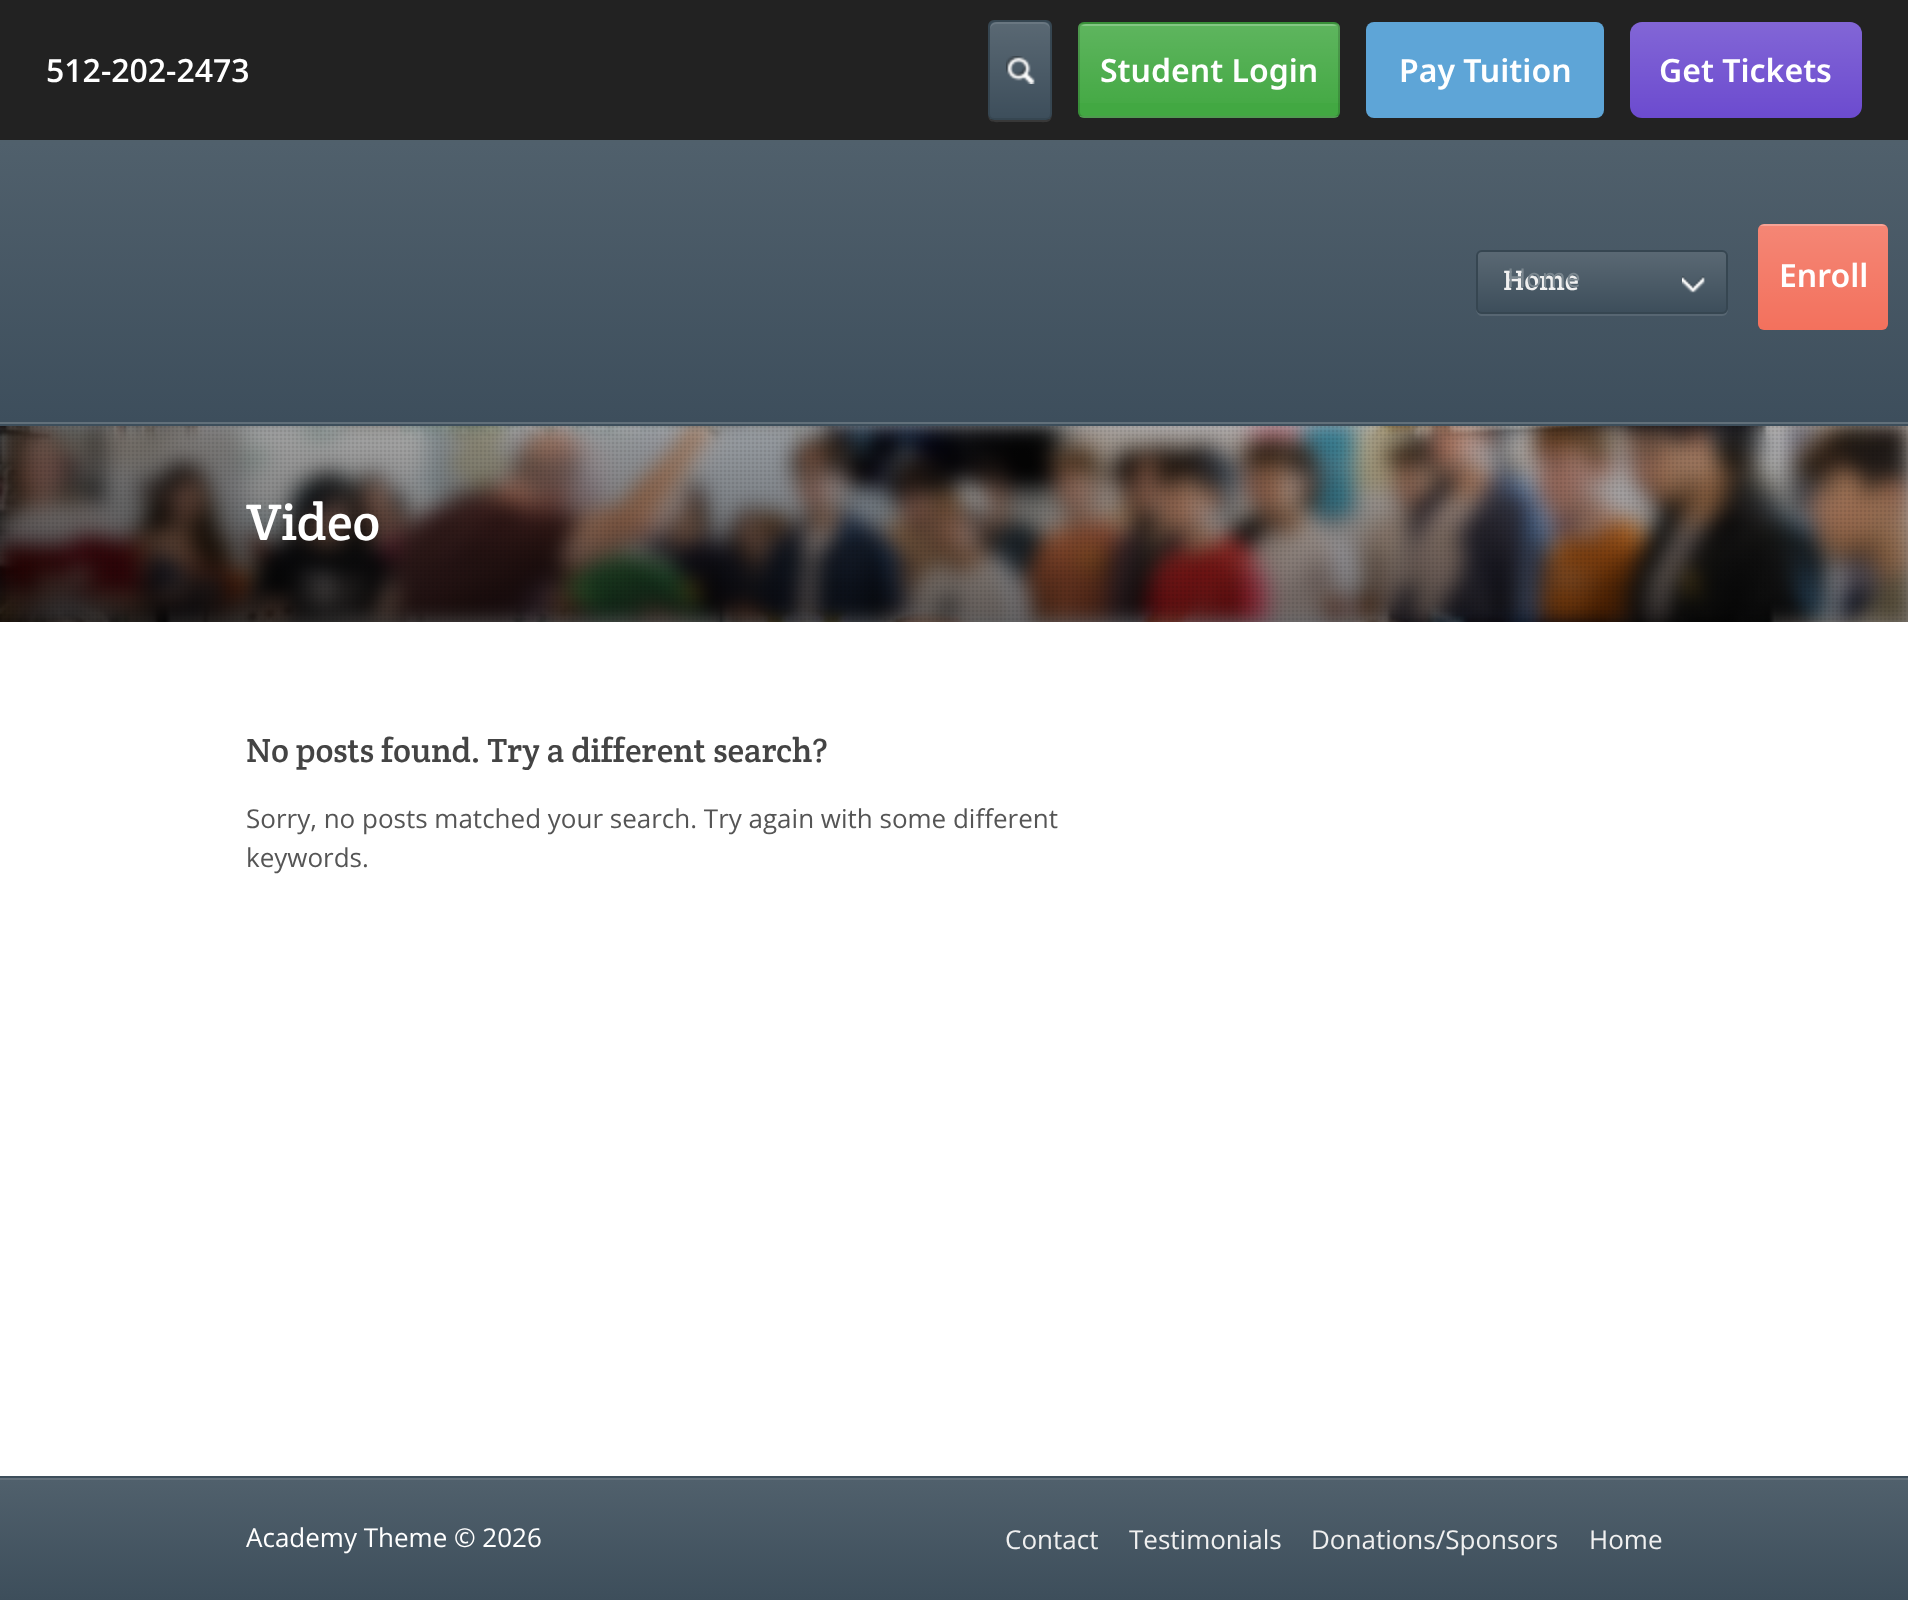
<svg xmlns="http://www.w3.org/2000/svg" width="1908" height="1600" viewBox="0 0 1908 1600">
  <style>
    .t1 { font: 600 32px Open Sans; fill: #fff; }
    .t2 { font: 600 32px Noto Sans; fill: #fff; }
    .t3 { font: 28.5px Crete Round; fill: #f0f0f0; }
    .t4 { font: 26px Open Sans; fill: #7b878f; }
    .t5 { font: 52px Crete Round; fill: #fff; }
    .t6 { font: 33.75px Crete Round; fill: #444; }
    .t7 { font: 26px Open Sans; fill: #555; }
    .t8 { font: 26px Open Sans; fill: #fff; }
    .t9 { font: 26px Open Sans; fill: #f0f0f0; }
  </style>
  <defs>
    <linearGradient id="g1" gradientUnits="userSpaceOnUse" x1="1020" y1="22" x2="1020" y2="118"><stop offset="0" stop-color="#fff" stop-opacity="0.15"/><stop offset="1" stop-color="#fff" stop-opacity="0"/></linearGradient>
    <clipPath id="clip1"><rect x="1078" y="22" width="262" height="96" rx="6"/></clipPath>
    <linearGradient id="g2" gradientUnits="userSpaceOnUse" x1="1209" y1="24" x2="1209" y2="116"><stop offset="0" stop-color="#fff" stop-opacity="0.15"/><stop offset="1" stop-color="#fff" stop-opacity="0"/></linearGradient>
    <linearGradient id="g3" gradientUnits="userSpaceOnUse" x1="1209" y1="116" x2="1209" y2="208"><stop offset="0" stop-color="#fff" stop-opacity="0.15"/><stop offset="1" stop-color="#fff" stop-opacity="0"/></linearGradient>
    <linearGradient id="g4" gradientUnits="userSpaceOnUse" x1="1746" y1="22" x2="1746" y2="118"><stop offset="0" stop-color="#fff" stop-opacity="0.15"/><stop offset="1" stop-color="#fff" stop-opacity="0"/></linearGradient>
    <linearGradient id="g5" gradientUnits="userSpaceOnUse" x1="954" y1="142" x2="954" y2="422"><stop offset="0" stop-color="#50606c"/><stop offset="1" stop-color="#3d4e5c"/></linearGradient>
    <linearGradient id="g6" gradientUnits="userSpaceOnUse" x1="1602" y1="252" x2="1602" y2="312"><stop offset="0" stop-color="#fff" stop-opacity="0.15"/><stop offset="1" stop-color="#fff" stop-opacity="0"/></linearGradient>
    <linearGradient id="g7" gradientUnits="userSpaceOnUse" x1="1823" y1="224" x2="1823" y2="330"><stop offset="0" stop-color="#fff" stop-opacity="0.15"/><stop offset="1" stop-color="#fff" stop-opacity="0"/></linearGradient>
    <linearGradient id="g8" gradientUnits="userSpaceOnUse" x1="934" y1="719" x2="974" y2="327"><stop offset="0" stop-color="#000" stop-opacity="0.75"/><stop offset="0.4" stop-color="#000" stop-opacity="0.45"/><stop offset="1" stop-color="#000" stop-opacity="0.1"/></linearGradient>
    <linearGradient id="g9" gradientUnits="userSpaceOnUse" x1="954" y1="1480" x2="954" y2="1600"><stop offset="0" stop-color="#50606c"/><stop offset="1" stop-color="#3d4e5b"/></linearGradient>
  </defs>
  <rect width="100%" height="100%" fill="#fff"/>
  <rect x="0" y="0" width="1908" height="140" fill="#222"/>
  <text x="46" y="82" class="t1">512-202-2473</text>
  <path d="M988 114C988 124 995 122 1003 122H1037C1045 122 1052 124 1052 114C1052 117 1049 120 1046 120H994C991 120 988 117 988 114Z" fill="#383838"/>
  <rect x="988" y="20" width="64" height="100" rx="6" fill="#3d4e5b"/>
  <image x="1006" y="56" width="29" height="28" href="images/1.png"/>
  <rect x="989" y="21" width="62" height="98" rx="5" fill="none" stroke="#0000001a" stroke-width="2"/>
  <rect x="990" y="22" width="60" height="96" rx="6" fill="url(#g1)"/>
  <path d="M996 24H1044C1047 24 1050 27 1050 30C1050 21 1044 22 1036 22H1004C996 22 990 21 990 30C990 27 993 24 996 24Z" fill="#ffffff1a"/>
  <rect x="1078" y="22" width="262" height="96" rx="6" fill="#42a842"/>
  <g clip-path="url(#clip1)">
    <rect x="1078" y="24" width="262" height="79" fill="url(#g2)"/>
    <rect x="1078" y="116" width="262" height="2" fill="url(#g3)"/>
  </g>
  <rect x="1079" y="23" width="260" height="94" rx="5" fill="none" stroke="#00000026" stroke-width="2"/>
  <image x="1081" y="24" width="256" height="2" href="images/2.png"/>
  <text x="1100" y="82" class="t2">Student Login</text>
  <rect x="1366" y="22" width="238" height="96" rx="8" fill="#5ea5d7"/>
  <text x="1399" y="82" class="t2">Pay Tuition</text>
  <rect x="1630" y="22" width="232" height="96" rx="12" fill="#6c4bcf"/>
  <rect x="1630" y="22" width="232" height="96" rx="12" fill="url(#g4)"/>
  <text x="1659" y="82" class="t2">Get Tickets</text>
  <rect x="0" y="142" width="1908" height="280" fill="url(#g5)"/>
  <rect x="0" y="140" width="1908" height="2" fill="#50606b"/>
  <rect x="0" y="422" width="1908" height="2" fill="#62707a"/>
  <path d="M1476 308C1476 311 1477 315 1481 316H1722C1727 316 1728 312 1728 308C1728 311 1725 314 1722 314H1482C1479 314 1476 311 1476 308Z" fill="#576672"/>
  <rect x="1476" y="250" width="252" height="64" rx="6" fill="#3d4e5b"/>
  <image x="1682" y="276" width="23" height="17" href="images/3.png"/>
  <rect x="1477" y="251" width="250" height="62" rx="5" fill="none" stroke="#0000001a" stroke-width="2"/>
  <rect x="1478" y="252" width="248" height="60" rx="4" fill="url(#g6)"/>
  <text x="1503" y="290" class="t3">Home</text>
  <text x="1507" y="287" class="t4">Home</text>
  <rect x="1758" y="224" width="130" height="106" rx="6" fill="#f3715d"/>
  <rect x="1758" y="224" width="130" height="106" rx="6" fill="url(#g7)"/>
  <image x="1760" y="224" width="126" height="2" href="images/4.png"/>
  <text x="1779" y="287" class="t2">Enroll</text>
  <rect x="0" y="424" width="1908" height="2" fill="#3d4e5b"/>
  <image x="0" y="426" width="1908" height="196" href="images/5.png"/>
  <image x="0" y="426" width="1908" height="196" href="images/6.png"/>
  <image x="0" y="426" width="1908" height="196" href="images/7.png"/>
  <rect x="0" y="426" width="1908" height="196" fill="url(#g8)"/>
  <text x="246" y="540" class="t5">Video</text>
  <text x="246" y="762" class="t6">No posts found. Try a different search?</text>
  <text x="246" y="828" class="t7">Sorry, no posts matched your search. Try again with some different</text>
  <text x="246" y="867" class="t7">keywords.</text>
  <rect x="0" y="1480" width="1908" height="120" fill="url(#g9)"/>
  <rect x="0" y="1478" width="1908" height="2" fill="#64717c"/>
  <rect x="0" y="1476" width="1908" height="2" fill="#3d4e5b"/>
  <text x="246" y="1547" class="t8">Academy Theme © 2026</text>
  <text x="1005" y="1549" class="t9">Contact</text>
  <text x="1129" y="1549" class="t9">Testimonials</text>
  <text x="1311" y="1549" class="t9">Donations/Sponsors</text>
  <text x="1589" y="1549" class="t9">Home</text>
</svg>
